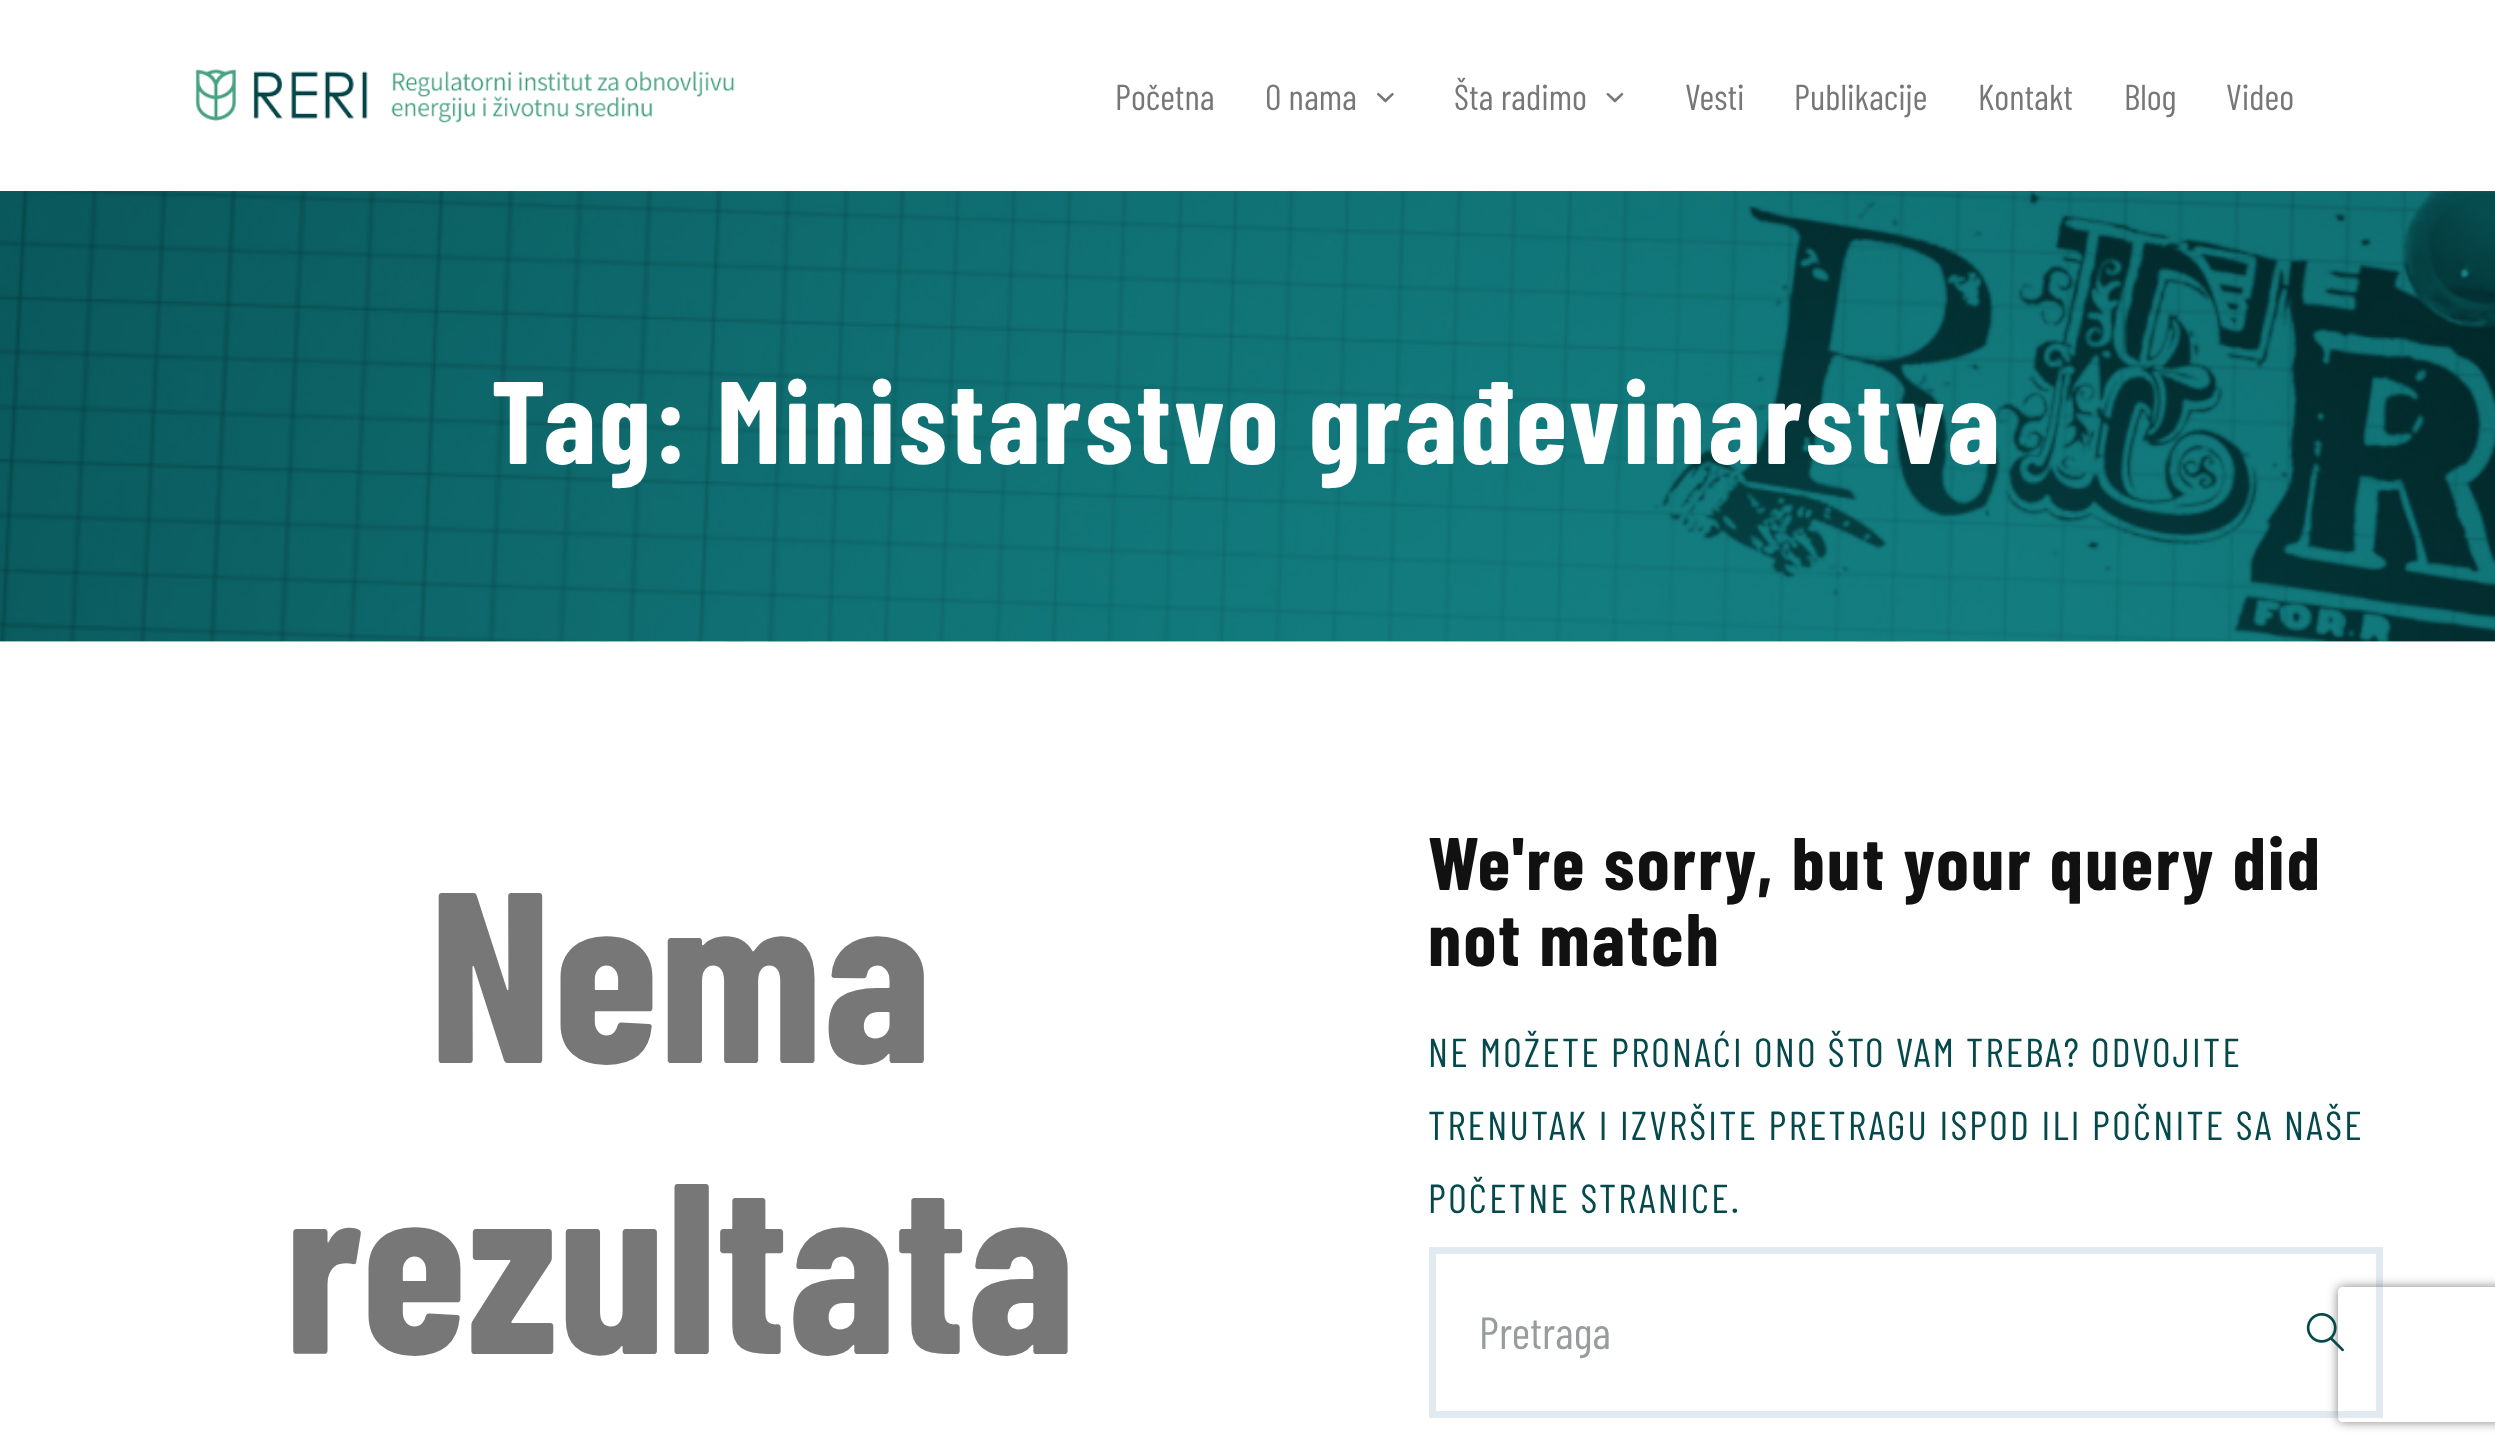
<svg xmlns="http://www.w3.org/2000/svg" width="2495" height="1452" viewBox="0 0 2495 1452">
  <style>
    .t1 { font: 36px Barlow Condensed; fill: #777; }
    .t2 { font: bold 117px Barlow Condensed; letter-spacing: 3.5px; fill: #fff; }
    .t3 { font: bold 243px Barlow Condensed; fill: #777; }
    .t4 { font: bold 74.25px Barlow Condensed; letter-spacing: 2.25px; fill: #111; }
    .t5 { font: 40.5px Barlow Condensed; letter-spacing: 2.25px; fill: #06494c; }
    .t6 { font: 45px Barlow Condensed; fill: #989c9c; }
  </style>
  <defs>
    <clipPath id="clip1"><path d="M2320 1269H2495V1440H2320ZM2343 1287H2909C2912 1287 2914 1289 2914 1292V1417C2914 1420 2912 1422 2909 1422H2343C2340 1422 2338 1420 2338 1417V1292C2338 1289 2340 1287 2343 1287Z" clip-rule="evenodd"/></clipPath>
  </defs>
  <rect width="100%" height="100%" fill="#fff"/>
  <image x="195" y="69" width="540" height="54" href="images/1.png"/>
  <text x="1115" y="110" class="t1">Početna</text>
  <text x="1265" y="110" class="t1">O nama</text>
  <image x="1377" y="92" width="17" height="11" href="images/2.png"/>
  <text x="1454" y="110" class="t1">Šta radimo</text>
  <image x="1606" y="92" width="18" height="11" href="images/3.png"/>
  <text x="1685" y="110" class="t1">Vesti</text>
  <text x="1794" y="110" class="t1">Publikacije</text>
  <text x="1978" y="110" class="t1">Kontakt</text>
  <text x="2124" y="110" class="t1">Blog</text>
  <text x="2226" y="110" class="t1">Video</text>
  <image x="0" y="191" width="2495" height="451" href="images/4.png"/>
  <image x="0" y="191" width="2495" height="451" href="images/5.png"/>
  <text x="491" y="464" class="t2">Tag: Ministarstvo građevinarstva</text>
  <text x="428" y="1063" class="t3">Nema</text>
  <text x="284" y="1354" class="t3">rezultata</text>
  <text x="1428" y="890" class="t4">We're sorry, but your query did</text>
  <text x="1428" y="966" class="t4">not match</text>
  <text x="1428" y="1067" word-spacing="-0.25" class="t5">NE MOŽETE PRONAĆI ONO ŠTO VAM TREBA? ODVOJITE</text>
  <text x="1428" y="1140" class="t5">TRENUTAK I IZVRŠITE PRETRAGU ISPOD ILI POČNITE SA NAŠE</text>
  <text x="1428" y="1213" class="t5">POČETNE STRANICE.</text>
  <rect x="1432.5" y="1250.5" width="947" height="164" fill="none" stroke="#e1eaf0" stroke-width="7"/>
  <text x="1479" y="1349" class="t6">Pretraga</text>
  <g clip-path="url(#clip1)">
    <rect x="2338" y="1287" width="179" height="135" rx="5" fill="#808080" filter="blur(5.5px)"/>
  </g>
  <image x="2306" y="1313" width="38" height="39" href="images/6.png"/>
</svg>
